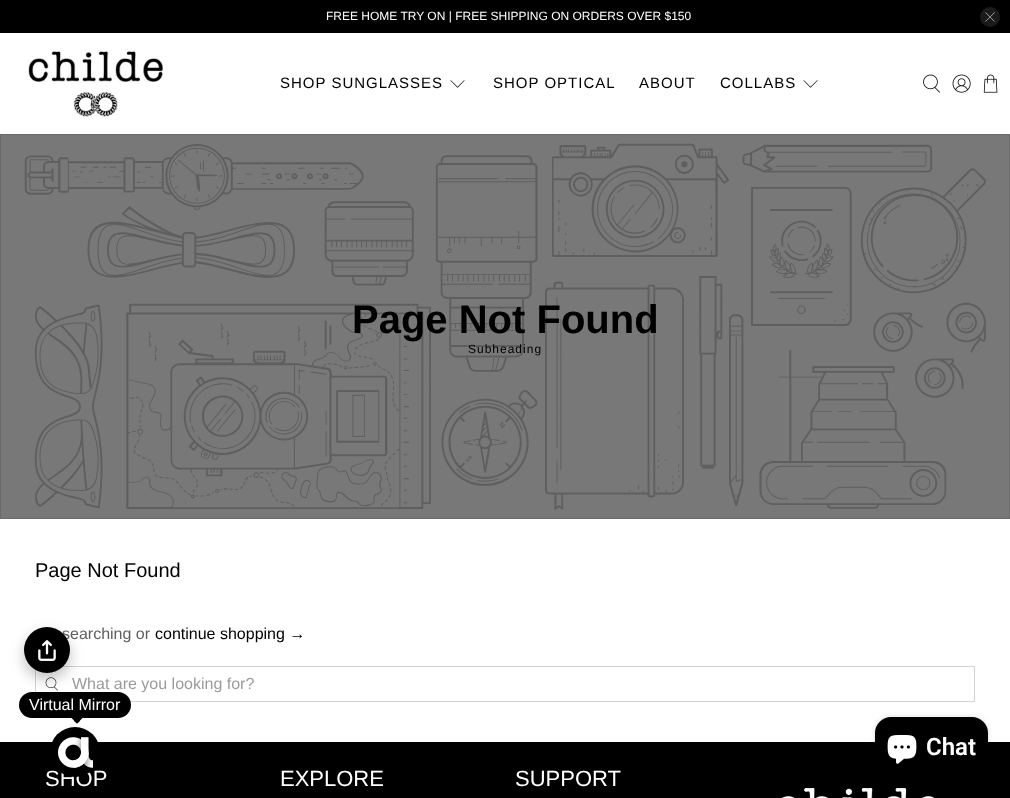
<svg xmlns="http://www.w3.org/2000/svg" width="1010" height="798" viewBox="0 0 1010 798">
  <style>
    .t1 { font: 12px Liberation Sans; fill: #fff; }
    .t2 { font: 15px Liberation Sans; letter-spacing: 1px; fill: #000; }
    .t3 { font: bold 40px Liberation Sans; fill: #000; }
    .t4 { font: 12px Liberation Sans; letter-spacing: 1px; fill: #000; }
    .t5 { font: 20px Liberation Sans; fill: #000; }
    .t6 { font: 16px Liberation Sans; fill: #606060; }
    .t7 { font: 16px Liberation Sans; fill: #000; }
    .t8 { font: 16px Liberation Sans; fill: #9b9b9b; }
    .t9 { font: 22px Liberation Sans; fill: #fff; }
    .t10 { font: 16px Liberation Sans; fill: #fff; }
    .t11 { font: 600 24px Roboto; fill: #fff; }
  </style>
  <rect width="100%" height="100%" fill="#fff"/>
  <rect x="0" y="0" width="1010" height="33" fill="#000"/>
  <text x="326" y="20" class="t1">FREE HOME TRY ON | FREE SHIPPING ON ORDERS OVER $150</text>
  <circle cx="990" cy="17" r="10" fill="#1a1a1a"/>
  <image x="985" y="12" width="10" height="10" href="images/1.png"/>
  <image x="28" y="49" width="135" height="69" href="images/2.png"/>
  <text x="280" y="88" class="t2">SHOP SUNGLASSES</text>
  <image x="450" y="80" width="15" height="8" href="images/3.png"/>
  <text x="493" y="88" class="t2">SHOP OPTICAL</text>
  <text x="639" y="88" class="t2">ABOUT</text>
  <text x="720" y="88" class="t2">COLLABS</text>
  <image x="803" y="80" width="15" height="8" href="images/3.png"/>
  <image x="923" y="74" width="17" height="19" href="images/4.png"/>
  <image x="952" y="74" width="19" height="19" href="images/5.png"/>
  <image x="983" y="74" width="15" height="19" href="images/6.png"/>
  <rect x="0.5" y="134.5" width="1009" height="384" fill="#787878" stroke="#6a6a6a"/>
  <image x="24" y="143" width="962" height="367" href="images/7.png"/>
  <text x="352" y="333" class="t3">Page Not Found</text>
  <text x="468" y="353" class="t4">Subheading</text>
  <text x="35" y="577" class="t5">Page Not Found</text>
  <text x="62" y="639" class="t6">searching or</text>
  <text x="155" y="639" class="t7">continue shopping →</text>
  <rect x="35.5" y="666.5" width="939" height="35" fill="none" stroke="#d3d3d3"/>
  <image x="45" y="677" width="13" height="14" href="images/8.png"/>
  <text x="72" y="689" class="t8">What are you looking for?</text>
  <rect x="24" y="633" width="46" height="46" rx="23" fill="#00000040" filter="blur(7px)"/>
  <circle cx="47" cy="650" r="23" fill="#000"/>
  <image x="38" y="640" width="18" height="21" href="images/9.png"/>
  <rect x="0" y="742" width="1010" height="56" fill="#000"/>
  <text x="45" y="786" class="t9">SHOP</text>
  <circle cx="75" cy="752" r="25" fill="#000"/>
  <rect x="19" y="692" width="112" height="26" rx="13" fill="#000"/>
  <text x="29" y="710" class="t10">Virtual Mirror</text>
  <path d="M80 715L82.5 718L77 723.5L74 721Z" fill="#000"/>
  <path d="M74 715L80 721L77 723.5L71.5 718Z" fill="#000"/>
  <image x="58" y="737" width="35" height="31" href="images/10.png"/>
  <rect x="875" y="717" width="113" height="60" rx="16" fill="#00000026" filter="blur(2.5px)"/>
  <rect x="875" y="717" width="113" height="60" rx="16" fill="#000"/>
  <image x="887" y="735" width="30" height="29" href="images/11.png"/>
  <text x="926" y="755" class="t11">Chat</text>
  <text x="280" y="786" class="t9">EXPLORE</text>
  <text x="515" y="786" class="t9">SUPPORT</text>
  <image x="782" y="788" width="153" height="10" href="images/12.png"/>
</svg>
